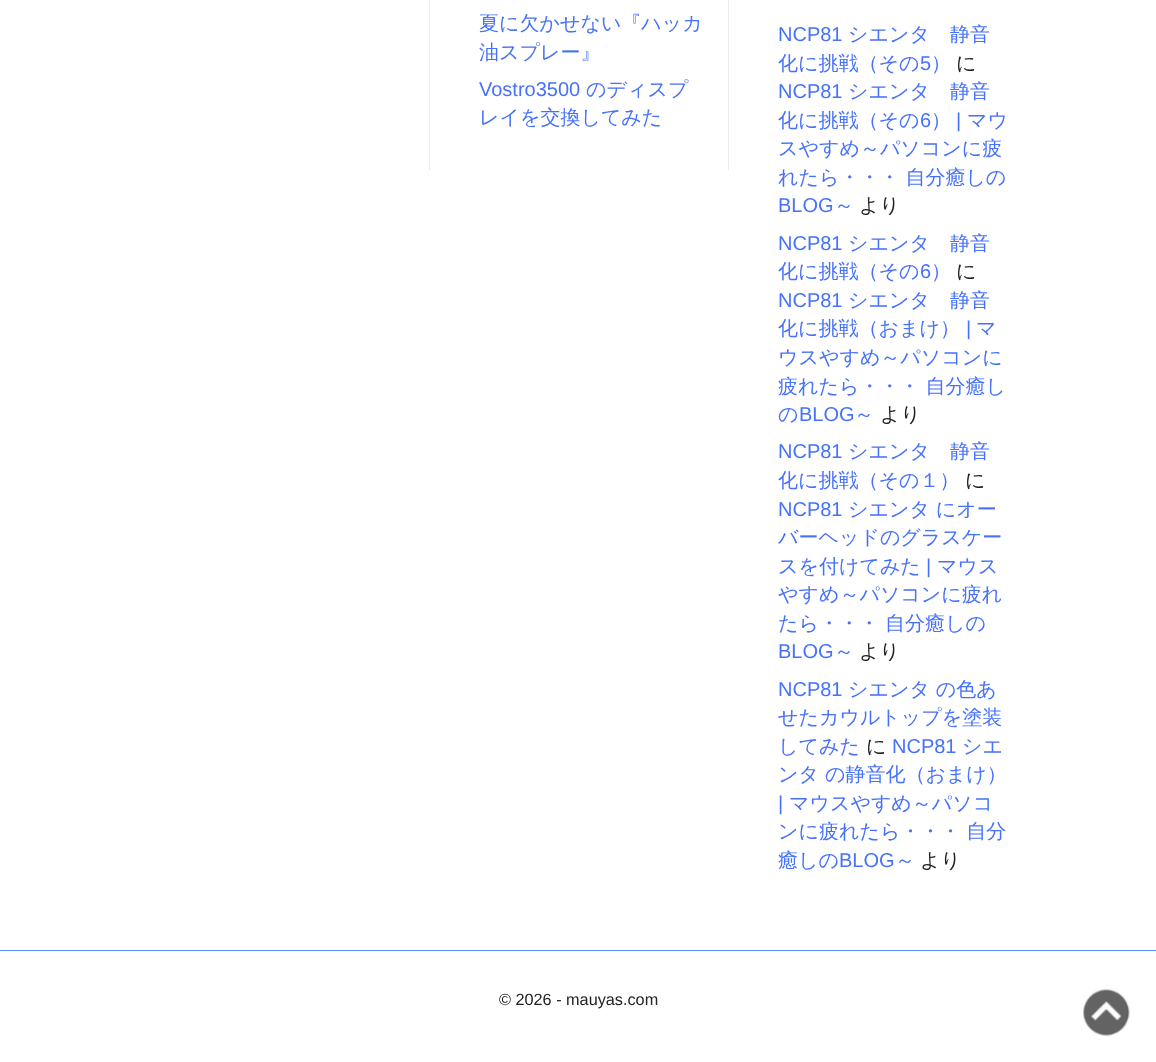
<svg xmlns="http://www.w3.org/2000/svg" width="1156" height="1062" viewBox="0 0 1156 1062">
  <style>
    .t1 { font: 500 20px WenQuanYi Zen Hei; fill: #4671fb; }
    .t2 { font: 20px Liberation Sans; fill: #4671fb; }
    .t3 { font: 500 20px WenQuanYi Zen Hei; fill: #222; }
    .t4 { font: 16.25px Liberation Sans; fill: #222; }
  </style>
  <rect width="100%" height="100%" fill="#fff"/>
  <rect x="728" y="0" width="1" height="170" fill="#ececec"/>
  <rect x="429" y="0" width="1" height="170" fill="#ececec"/>
  <text x="479" y="30" class="t1">夏に欠かせない『ハッカ</text>
  <text x="479" y="59" class="t1">油スプレー』</text>
  <text x="479" y="96" class="t2">Vostro3500</text>
  <text x="586" y="96" class="t1">のディスプ</text>
  <text x="479" y="124" class="t1">レイを交換してみた</text>
  <text x="778" y="41" class="t2">NCP81</text>
  <text x="848" y="41" class="t1">シエンタ　静音</text>
  <text x="778" y="70" class="t1">化に挑戦（その</text>
  <text x="920" y="70" class="t2">5</text>
  <text x="931" y="70" class="t1">）</text>
  <text x="956" y="70" class="t3">に</text>
  <text x="778" y="98" class="t2">NCP81</text>
  <text x="848" y="98" class="t1">シエンタ　静音</text>
  <text x="778" y="127" class="t1">化に挑戦（その</text>
  <text x="920" y="127" class="t2">6</text>
  <text x="931" y="127" class="t1">）</text>
  <text x="956" y="127" class="t2">|</text>
  <text x="967" y="127" class="t1">マウ</text>
  <text x="778" y="155" class="t1">スやすめ～パソコンに疲</text>
  <text x="778" y="184" class="t1">れたら・・・ 自分癒しの</text>
  <text x="778" y="212" class="t2">BLOG</text>
  <text x="834" y="212" class="t1">～</text>
  <text x="859" y="212" class="t3">より</text>
  <text x="778" y="250" class="t2">NCP81</text>
  <text x="848" y="250" class="t1">シエンタ　静音</text>
  <text x="778" y="278" class="t1">化に挑戦（その</text>
  <text x="920" y="278" class="t2">6</text>
  <text x="931" y="278" class="t1">）</text>
  <text x="956" y="278" class="t3">に</text>
  <text x="778" y="307" class="t2">NCP81</text>
  <text x="848" y="307" class="t1">シエンタ　静音</text>
  <text x="778" y="335" class="t1">化に挑戦（おまけ）</text>
  <text x="966" y="335" class="t2">|</text>
  <text x="976" y="335" class="t1">マ</text>
  <text x="778" y="364" class="t1">ウスやすめ～パソコンに</text>
  <text x="778" y="393" class="t1">疲れたら・・・ 自分癒し</text>
  <text x="778" y="421" class="t1">の</text>
  <text x="799" y="421" class="t2">BLOG</text>
  <text x="854" y="421" class="t1">～</text>
  <text x="880" y="421" class="t3">より</text>
  <text x="778" y="458" class="t2">NCP81</text>
  <text x="848" y="458" class="t1">シエンタ　静音</text>
  <text x="778" y="487" class="t1">化に挑戦（その１）</text>
  <text x="965" y="487" class="t3">に</text>
  <text x="778" y="516" class="t2">NCP81</text>
  <text x="848" y="516" class="t1">シエンタ にオー</text>
  <text x="778" y="544" class="t1">バーヘッドのグラスケー</text>
  <text x="778" y="573" class="t1">スを付けてみた</text>
  <text x="926" y="573" class="t2">|</text>
  <text x="937" y="573" class="t1">マウス</text>
  <text x="778" y="601" class="t1">やすめ～パソコンに疲れ</text>
  <text x="778" y="630" class="t1">たら・・・ 自分癒しの</text>
  <text x="778" y="658" class="t2">BLOG</text>
  <text x="834" y="658" class="t1">～</text>
  <text x="859" y="658" class="t3">より</text>
  <text x="778" y="696" class="t2">NCP81</text>
  <text x="848" y="696" class="t1">シエンタ の色あ</text>
  <text x="778" y="724" class="t1">せたカウルトップを塗装</text>
  <text x="778" y="753" class="t1">してみた</text>
  <text x="866" y="753" class="t3">に</text>
  <text x="892" y="753" class="t2">NCP81</text>
  <text x="962" y="753" class="t1">シエ</text>
  <text x="778" y="781" class="t1">ンタ の静音化（おまけ）</text>
  <text x="778" y="810" class="t2">|</text>
  <text x="789" y="810" class="t1">マウスやすめ～パソコ</text>
  <text x="778" y="838" class="t1">ンに疲れたら・・・ 自分</text>
  <text x="778" y="867" class="t1">癒しの</text>
  <text x="839" y="867" class="t2">BLOG</text>
  <text x="895" y="867" class="t1">～</text>
  <text x="920" y="867" class="t3">より</text>
  <rect x="0" y="950" width="1156" height="1" fill="#5a93fb"/>
  <text x="499" y="1005" class="t4">© 2026 - mauyas.com</text>
  <image x="1081" y="988" width="50" height="49" href="images/1.png"/>
</svg>
